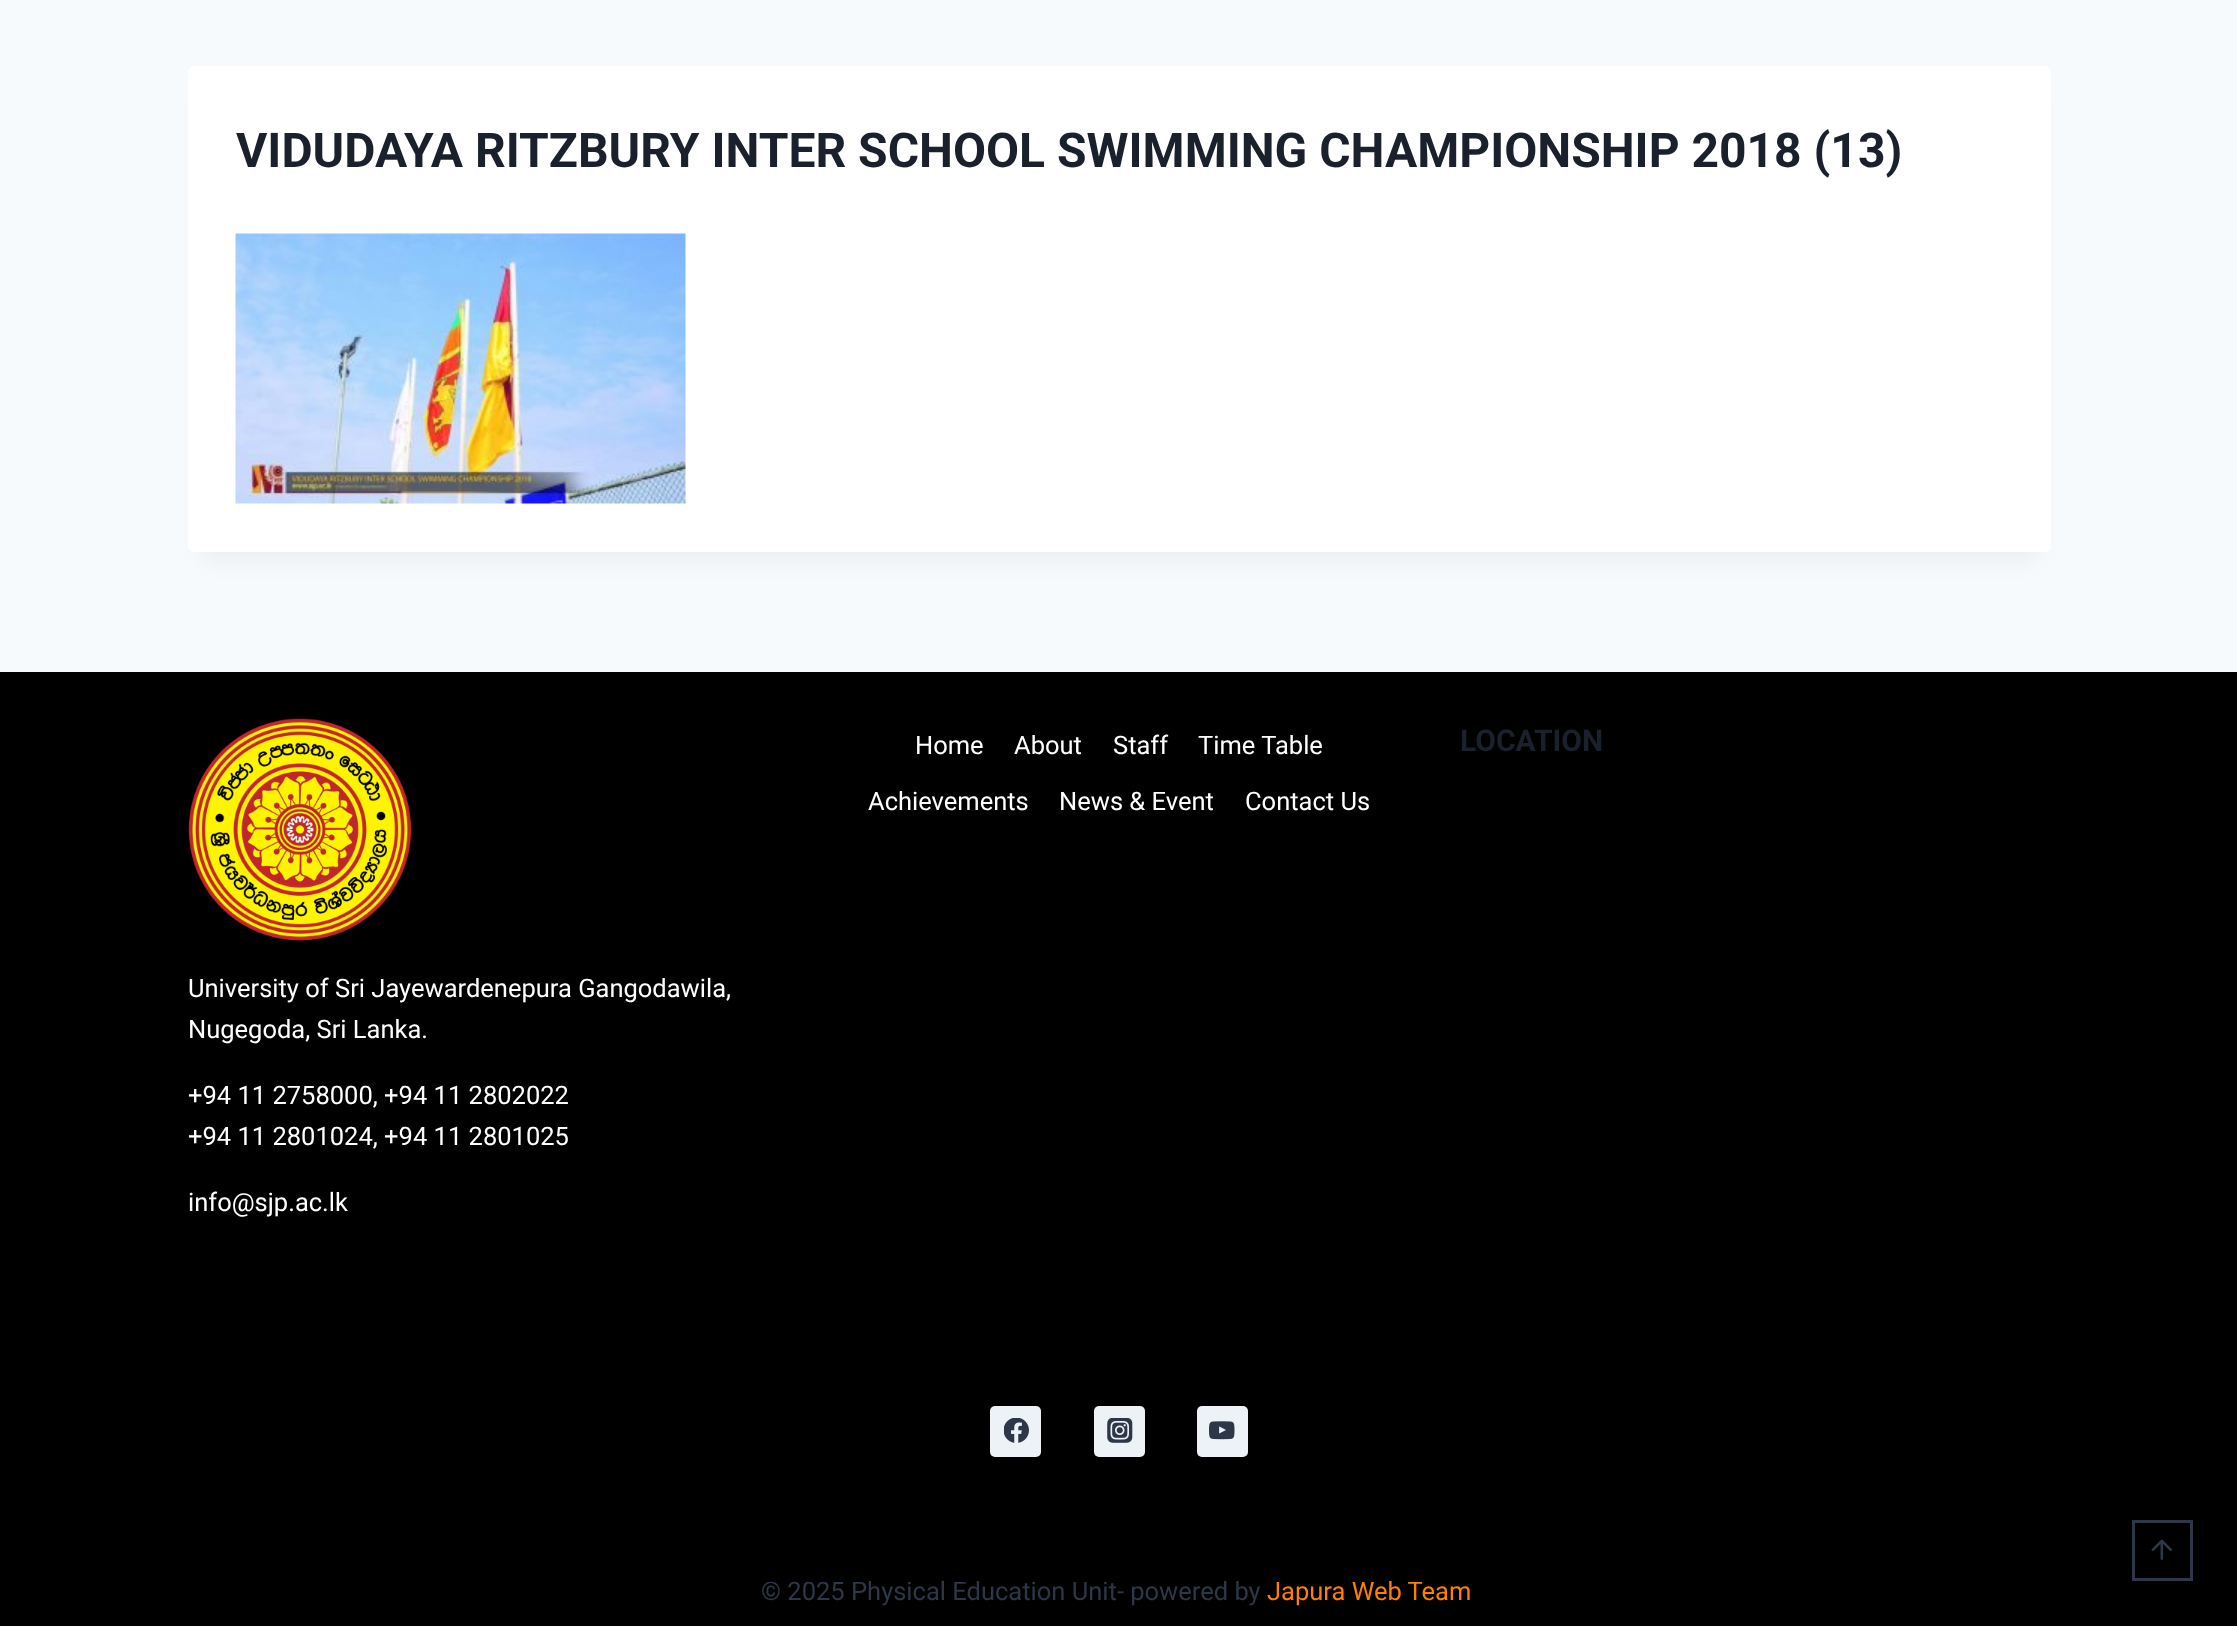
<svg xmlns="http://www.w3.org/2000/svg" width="2237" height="1626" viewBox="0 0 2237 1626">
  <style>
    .t1 { font: bold 48px Roboto; fill: #1a202c; }
    .t2 { font: 25.5px Roboto; fill: #fff; }
    .t3 { font: bold 30px Roboto; fill: #1a202c; }
    .t4 { font: 25.5px Roboto; fill: #2d3748; }
    .t5 { font: 25.5px Roboto; fill: #ff8000; }
  </style>
  <rect width="100%" height="100%" fill="#f7fafc"/>
  <rect x="203" y="104" width="1833" height="456" fill="#0000000d" filter="blur(11px)"/>
  <rect x="188" y="66" width="1863" height="486" rx="6" fill="#fff"/>
  <text x="236" y="167" class="t1">VIDUDAYA RITZBURY INTER SCHOOL SWIMMING CHAMPIONSHIP 2018 (13)</text>
  <image x="235" y="233" width="451" height="271" href="images/1.png"/>
  <rect x="0" y="672" width="2237" height="954" fill="#000"/>
  <text x="915" y="754" class="t2">Home</text>
  <text x="1014" y="754" class="t2">About</text>
  <text x="1113" y="754" class="t2">Staff</text>
  <text x="1198" y="754" class="t2">Time Table</text>
  <text x="868" y="810" class="t2">Achievements</text>
  <text x="1059" y="810" class="t2">News &amp; Event</text>
  <text x="1245" y="810" class="t2">Contact Us</text>
  <text x="1460" y="751" class="t3">LOCATION</text>
  <image x="188" y="718" width="224" height="223" href="images/2.png"/>
  <text x="188" y="997" class="t2">University of Sri Jayewardenepura Gangodawila,</text>
  <text x="188" y="1038" class="t2">Nugegoda, Sri Lanka.</text>
  <text x="188" y="1104" class="t2">+94 11 2758000, +94 11 2802022</text>
  <text x="188" y="1145" class="t2">+94 11 2801024, +94 11 2801025</text>
  <text x="188" y="1211" class="t2">info@sjp.ac.lk</text>
  <rect x="990" y="1406" width="51" height="51" rx="5" fill="#edf2f7"/>
  <image x="1004" y="1418" width="25" height="25" href="images/3.png"/>
  <rect x="1094" y="1406" width="51" height="51" rx="5" fill="#edf2f7"/>
  <image x="1107" y="1418" width="26" height="25" href="images/4.png"/>
  <rect x="1197" y="1406" width="51" height="51" rx="5" fill="#edf2f7"/>
  <image x="1209" y="1421" width="26" height="19" href="images/5.png"/>
  <text x="761" y="1600" class="t4">© 2025 Physical Education Unit- powered by</text>
  <text x="1267" y="1600" class="t5">Japura Web Team</text>
  <rect x="2133.5" y="1521.5" width="58" height="58" fill="none" stroke="#2d3748" stroke-width="3"/>
  <image x="2151" y="1539" width="21" height="21" href="images/6.png"/>
</svg>
